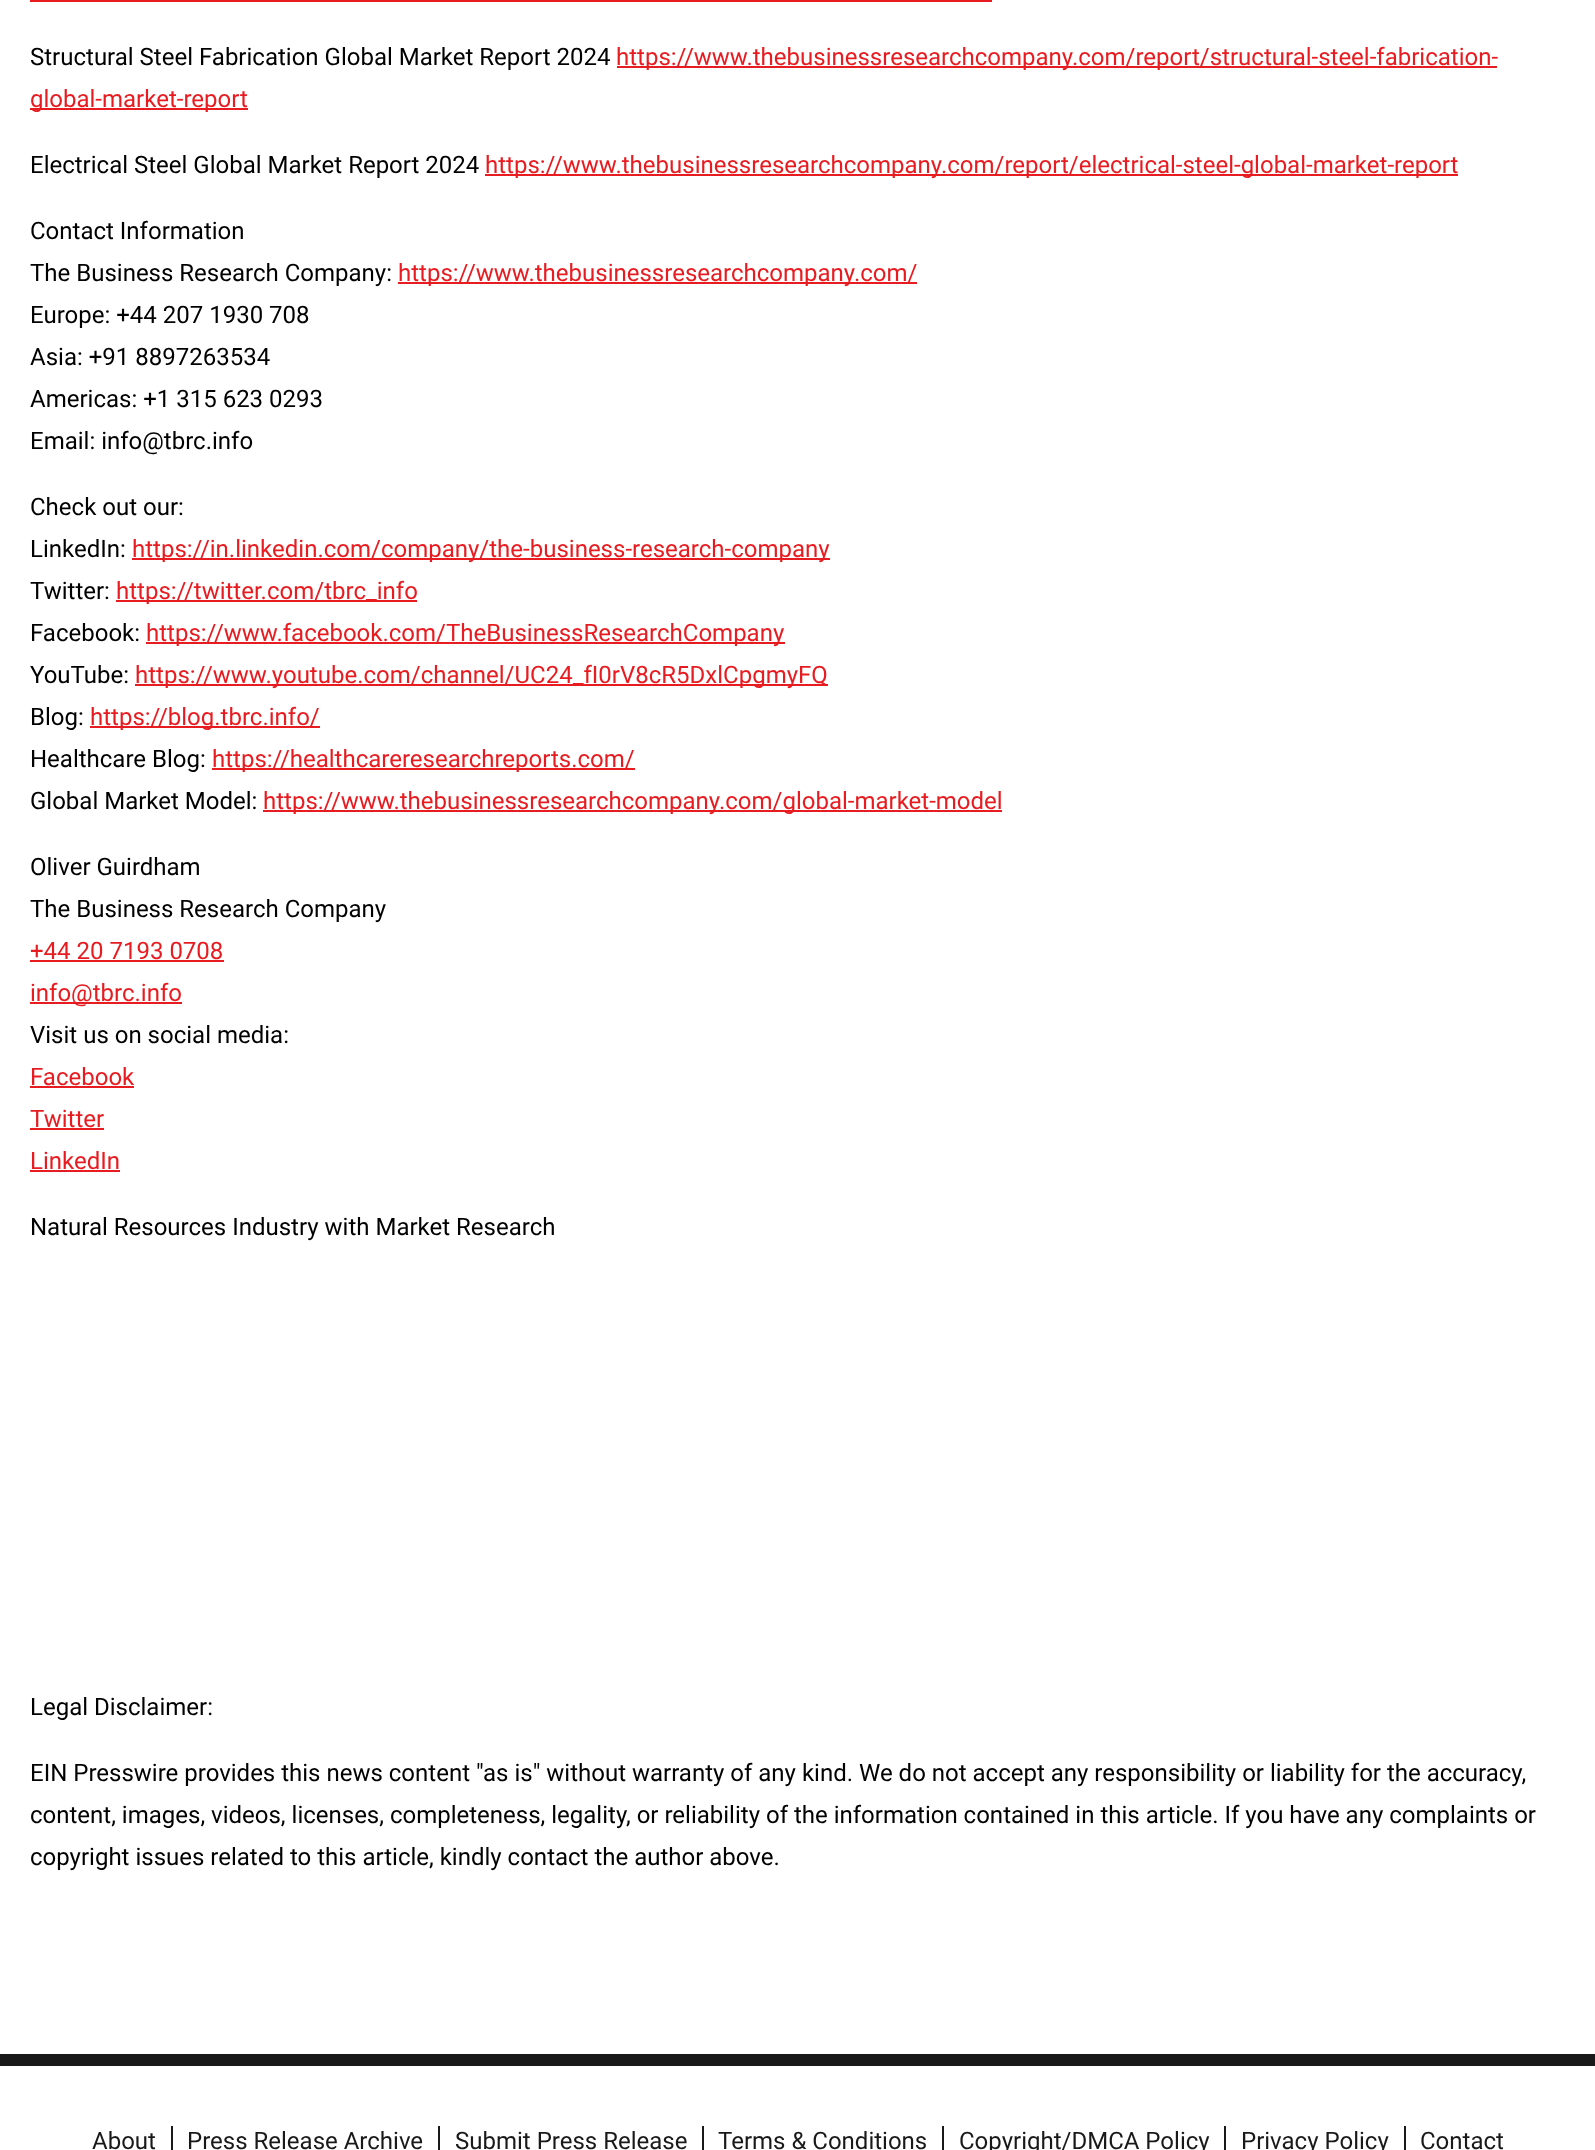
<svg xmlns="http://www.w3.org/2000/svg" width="1595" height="2150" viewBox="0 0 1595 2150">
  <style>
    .t1 { font: 24px Roboto; fill: #000; }
    .t2 { font: 24px Roboto; fill: #e81c20; }
    .t3 { font: 24px Roboto; fill: #191919; }
  </style>
  <rect width="100%" height="100%" fill="#fff"/>
  <rect x="30" y="0" width="962" height="2" fill="#e81c20"/>
  <text x="30" y="65" class="t1">Structural Steel Fabrication Global Market Report 2024</text>
  <rect x="617" y="66" width="880" height="2" fill="#e81c20"/>
  <text x="616" y="65" class="t2">https://www.thebusinessresearchcompany.com/report/structural-steel-fabrication-</text>
  <rect x="30" y="108" width="218" height="2" fill="#e81c20"/>
  <text x="30" y="107" class="t2">global-market-report</text>
  <text x="30" y="173" class="t1">Electrical Steel Global Market Report 2024</text>
  <rect x="485" y="174" width="973" height="2" fill="#e81c20"/>
  <text x="485" y="173" class="t2">https://www.thebusinessresearchcompany.com/report/electrical-steel-global-market-report</text>
  <text x="30" y="239" class="t1">Contact Information</text>
  <text x="30" y="281" class="t1">The Business Research Company:</text>
  <rect x="398" y="282" width="519" height="2" fill="#e81c20"/>
  <text x="398" y="281" class="t2">https://www.thebusinessresearchcompany.com/</text>
  <text x="30" y="323" class="t1">Europe: +44 207 1930 708</text>
  <text x="30" y="365" class="t1">Asia: +91 8897263534</text>
  <text x="30" y="407" class="t1">Americas: +1 315 623 0293</text>
  <text x="30" y="449" class="t1">Email: info@tbrc.info</text>
  <text x="30" y="515" class="t1">Check out our:</text>
  <text x="30" y="557" class="t1">LinkedIn:</text>
  <rect x="132" y="558" width="698" height="2" fill="#e81c20"/>
  <text x="132" y="557" class="t2">https://in.linkedin.com/company/the-business-research-company</text>
  <text x="30" y="599" class="t1">Twitter:</text>
  <rect x="116" y="600" width="301" height="2" fill="#e81c20"/>
  <text x="116" y="599" class="t2">https://twitter.com/tbrc_info</text>
  <text x="30" y="641" class="t1">Facebook:</text>
  <rect x="146" y="642" width="639" height="2" fill="#e81c20"/>
  <text x="146" y="641" class="t2">https://www.facebook.com/TheBusinessResearchCompany</text>
  <text x="30" y="683" class="t1">YouTube:</text>
  <rect x="135" y="684" width="693" height="2" fill="#e81c20"/>
  <text x="135" y="683" class="t2">https://www.youtube.com/channel/UC24_fI0rV8cR5DxlCpgmyFQ</text>
  <text x="30" y="725" class="t1">Blog:</text>
  <rect x="90" y="726" width="230" height="2" fill="#e81c20"/>
  <text x="90" y="725" class="t2">https://blog.tbrc.info/</text>
  <text x="30" y="767" class="t1">Healthcare Blog:</text>
  <rect x="212" y="768" width="423" height="2" fill="#e81c20"/>
  <text x="212" y="767" class="t2">https://healthcareresearchreports.com/</text>
  <text x="30" y="809" class="t1">Global Market Model:</text>
  <rect x="263" y="810" width="739" height="2" fill="#e81c20"/>
  <text x="263" y="809" class="t2">https://www.thebusinessresearchcompany.com/global-market-model</text>
  <text x="30" y="875" class="t1">Oliver Guirdham</text>
  <text x="30" y="917" class="t1">The Business Research Company</text>
  <text x="30" y="959" class="t2">+44 20 7193 0708</text>
  <rect x="30" y="960" width="194" height="2" fill="#e81c20"/>
  <rect x="30" y="1002" width="152" height="2" fill="#e81c20"/>
  <text x="30" y="1001" class="t2">info@tbrc.info</text>
  <text x="30" y="1043" class="t1">Visit us on social media:</text>
  <text x="30" y="1085" class="t2">Facebook</text>
  <rect x="30" y="1086" width="104" height="2" fill="#e81c20"/>
  <text x="30" y="1127" class="t2">Twitter</text>
  <rect x="30" y="1128" width="74" height="2" fill="#e81c20"/>
  <text x="30" y="1169" class="t2">LinkedIn</text>
  <rect x="30" y="1170" width="90" height="2" fill="#e81c20"/>
  <text x="30" y="1235" class="t1">Natural Resources Industry with Market Research</text>
  <text x="30" y="1715" class="t1">Legal Disclaimer:</text>
  <text x="30" y="1781" class="t1">EIN Presswire provides this news content "as is" without warranty of any kind. We do not accept any responsibility or liability for the accuracy,</text>
  <text x="30" y="1823" class="t1">content, images, videos, licenses, completeness, legality, or reliability of the information contained in this article. If you have any complaints or</text>
  <text x="30" y="1865" class="t1">copyright issues related to this article, kindly contact the author above.</text>
  <rect x="0" y="2054" width="1595" height="12" fill="#191919"/>
  <rect x="171" y="2126" width="2" height="24" fill="#191919"/>
  <text x="92" y="2149" class="t3">About</text>
  <rect x="438" y="2126" width="2" height="24" fill="#191919"/>
  <text x="187" y="2149" class="t3">Press Release Archive</text>
  <rect x="702" y="2126" width="2" height="24" fill="#191919"/>
  <text x="455" y="2149" class="t3">Submit Press Release</text>
  <rect x="942" y="2126" width="2" height="24" fill="#191919"/>
  <text x="718" y="2149" class="t3">Terms &amp; Conditions</text>
  <rect x="1224" y="2126" width="2" height="24" fill="#191919"/>
  <text x="959" y="2149" class="t3">Copyright/DMCA Policy</text>
  <rect x="1404" y="2126" width="2" height="24" fill="#191919"/>
  <text x="1241" y="2149" class="t3">Privacy Policy</text>
  <text x="1420" y="2149" class="t3">Contact</text>
</svg>
